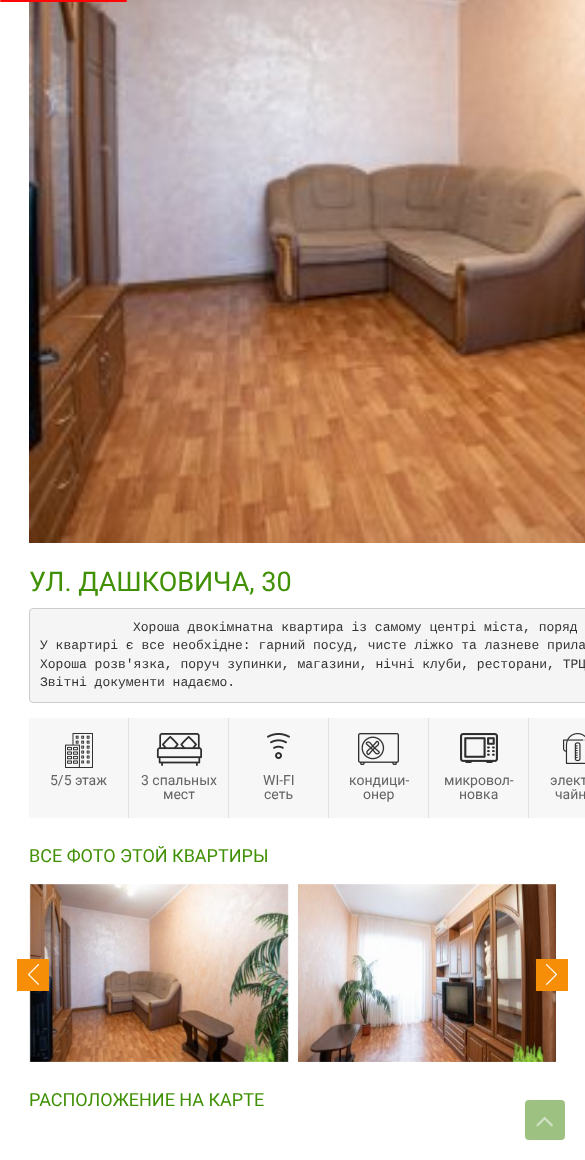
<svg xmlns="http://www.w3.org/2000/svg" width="585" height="1160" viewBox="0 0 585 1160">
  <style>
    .t1 { font: 27px Roboto; fill: #419106; }
    .t2 { font: 13px Liberation Mono; fill: #333; }
    .t3 { font: 14px Roboto; fill: #646464; }
    .t4 { font: 18px Roboto; fill: #419106; }
  </style>
  <rect width="100%" height="100%" fill="#fff"/>
  <image x="29" y="0" width="556" height="543" href="images/1.png"/>
  <rect x="0" y="0" width="127" height="2" rx="1" fill="#ff0606"/>
  <text x="29" y="591" class="t1">УЛ. ДАШКОВИЧА, 30</text>
  <rect x="29.5" y="608.5" width="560" height="94" rx="3.5" fill="#f5f5f5" stroke="#ccc"/>
  <text x="133" y="631" class="t2">Хороша двокімнатна квартира із самому центрі міста, поряд</text>
  <text x="40" y="649" class="t2">У квартирі є все необхідне: гарний посуд, чисте ліжко та лазневе прила</text>
  <text x="40" y="668" class="t2">Хороша розв'язка, поруч зупинки, магазини, нічні клуби, ресторани, ТРЦ</text>
  <text x="40" y="686" class="t2">Звітні документи надаємо.</text>
  <rect x="29" y="718" width="99" height="100" fill="#f7f7f7"/>
  <rect x="128" y="718" width="1" height="100" fill="#e2e2e2"/>
  <image x="65" y="733" width="28" height="35" href="images/2.png"/>
  <text x="50" y="785" class="t3">5/5 этаж</text>
  <rect x="129" y="718" width="99" height="100" fill="#f7f7f7"/>
  <rect x="228" y="718" width="1" height="100" fill="#e2e2e2"/>
  <image x="156" y="733" width="46" height="33" href="images/3.png"/>
  <text x="141" y="785" class="t3">3 спальных</text>
  <text x="163" y="799" class="t3">мест</text>
  <rect x="229" y="718" width="99" height="100" fill="#f7f7f7"/>
  <rect x="328" y="718" width="1" height="100" fill="#e2e2e2"/>
  <image x="267" y="733" width="23" height="26" href="images/4.png"/>
  <text x="263" y="785" class="t3">WI-FI</text>
  <text x="264" y="799" class="t3">сеть</text>
  <rect x="329" y="718" width="99" height="100" fill="#f7f7f7"/>
  <rect x="428" y="718" width="1" height="100" fill="#e2e2e2"/>
  <image x="358" y="733" width="41" height="32" href="images/5.png"/>
  <text x="349" y="785" class="t3">кондици-</text>
  <text x="363" y="799" class="t3">онер</text>
  <rect x="429" y="718" width="99" height="100" fill="#f7f7f7"/>
  <rect x="528" y="718" width="1" height="100" fill="#e2e2e2"/>
  <image x="460" y="733" width="38" height="30" href="images/6.png"/>
  <text x="444" y="785" class="t3">микровол-</text>
  <text x="459" y="799" class="t3">новка</text>
  <rect x="529" y="718" width="56" height="100" fill="#f7f7f7"/>
  <image x="563" y="733" width="22" height="31" href="images/7.png"/>
  <text x="550" y="785" class="t3">элект</text>
  <text x="555" y="799" class="t3">чайн</text>
  <text x="29" y="862" class="t4">ВСЕ ФОТО ЭТОЙ КВАРТИРЫ</text>
  <image x="29" y="884" width="260" height="178" href="images/8.png"/>
  <image x="298" y="884" width="258" height="178" href="images/9.png"/>
  <rect x="17" y="959" width="32" height="32" fill="#f68e07"/>
  <image x="28" y="964" width="11" height="21" href="images/10.png"/>
  <rect x="536" y="959" width="32" height="32" fill="#f68e07"/>
  <image x="546" y="964" width="11" height="21" href="images/11.png"/>
  <text x="29" y="1106" class="t4">РАСПОЛОЖЕНИЕ НА КАРТЕ</text>
  <rect x="525" y="1100" width="40" height="40" rx="4" fill="#9dc181"/>
  <image x="536" y="1116" width="17" height="11" href="images/12.png"/>
</svg>
